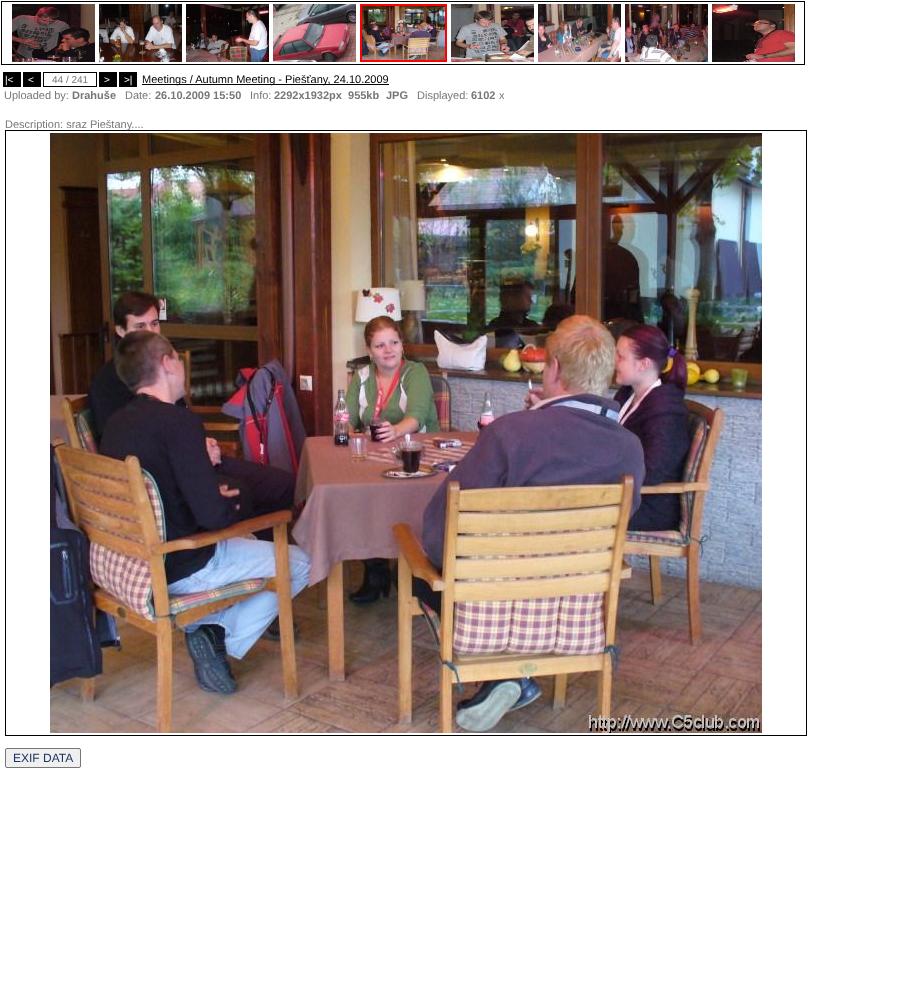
<svg xmlns="http://www.w3.org/2000/svg" width="899" height="1007" viewBox="0 0 899 1007">
  <style>
    .t1 { font: 10px Liberation Sans; fill: #fff; }
    .t2 { font: 10px Liberation Sans; fill: #777; }
    .t3 { font: 11px Liberation Sans; fill: #000; }
    .t4 { font: 11px Liberation Sans; fill: #777; }
    .t5 { font: bold 11px Liberation Sans; fill: #777; }
    .t6 { font: 12px Liberation Sans; fill: #1b3361; }
  </style>
  <rect width="100%" height="100%" fill="#fff"/>
  <rect x="1.5" y="1.5" width="803" height="63" fill="none" stroke="#000"/>
  <image x="12" y="4" width="83" height="58" href="images/1.png"/>
  <image x="99" y="4" width="83" height="58" href="images/2.png"/>
  <image x="186" y="4" width="83" height="58" href="images/3.png"/>
  <image x="273" y="4" width="83" height="58" href="images/4.png"/>
  <rect x="361" y="5" width="85" height="56" fill="none" stroke="#f00" stroke-width="2"/>
  <image x="451" y="4" width="83" height="58" href="images/5.png"/>
  <image x="538" y="4" width="83" height="58" href="images/6.png"/>
  <image x="625" y="4" width="83" height="58" href="images/7.png"/>
  <image x="712" y="4" width="83" height="58" href="images/8.png"/>
  <image x="362" y="6" width="83" height="54" href="images/9.png"/>
  <rect x="3" y="72" width="18" height="15" fill="#000"/>
  <text x="5" y="83" class="t1">|&lt;</text>
  <rect x="23" y="72" width="18" height="15" fill="#000"/>
  <text x="28" y="83" class="t1">&lt;</text>
  <rect x="43.5" y="72.5" width="53" height="14" fill="none" stroke="#000"/>
  <text x="52" y="83" class="t2">44 / 241</text>
  <rect x="99" y="72" width="18" height="15" fill="#000"/>
  <text x="104" y="83" class="t1">&gt;</text>
  <rect x="119" y="72" width="18" height="15" fill="#000"/>
  <text x="124" y="83" class="t1">&gt;|</text>
  <rect x="142" y="84" width="247" height="1" fill="#000"/>
  <text x="142" y="83" class="t3">Meetings / Autumn Meeting - Piešťany, 24.10.2009</text>
  <text x="4" y="99" class="t4">Uploaded by:</text>
  <text x="72" y="99" class="t5">Drahuše</text>
  <text x="125" y="99" class="t4">Date:</text>
  <text x="155" y="99" class="t5">26.10.2009 15:50</text>
  <text x="250" y="99" class="t4">Info:</text>
  <text x="274" y="99" class="t5" xml:space="preserve">2292x1932px  955kb</text>
  <text x="386" y="99" class="t5">JPG</text>
  <text x="417" y="99" class="t4">Displayed:</text>
  <text x="471" y="99" class="t5">6102</text>
  <text x="499" y="99" class="t4">x</text>
  <rect x="5.5" y="130.5" width="801" height="605" fill="none" stroke="#000"/>
  <text x="5" y="128" class="t4">Description: sraz Pieštany....</text>
  <image x="50" y="133" width="712" height="600" href="images/10.png"/>
  <rect x="5.5" y="748.5" width="75" height="19" rx="1.5" fill="#efefef" stroke="#767676"/>
  <text x="13" y="762" class="t6">EXIF DATA</text>
</svg>
